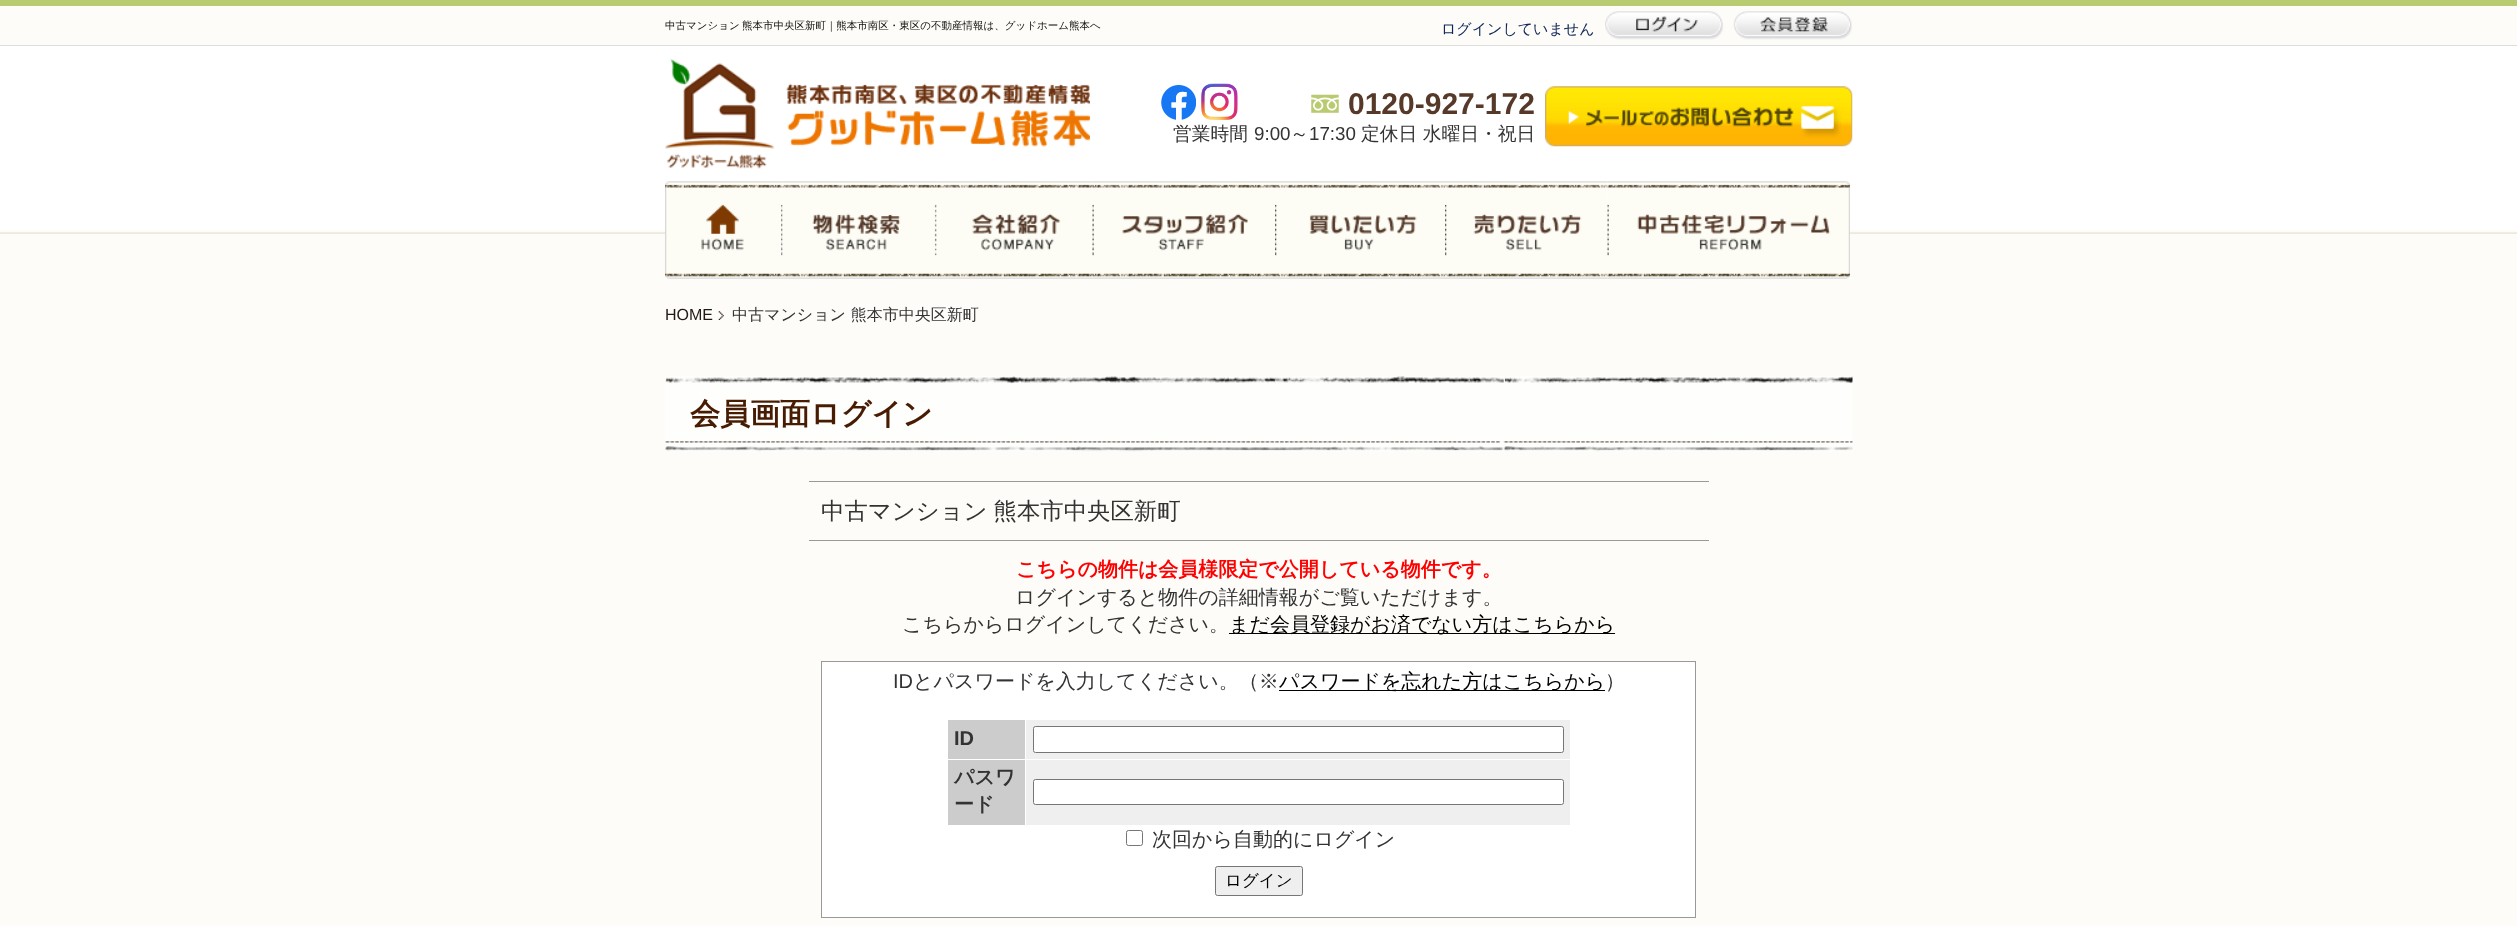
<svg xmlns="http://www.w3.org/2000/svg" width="2517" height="926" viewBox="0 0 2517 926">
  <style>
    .t1 { font: 500 10.5px WenQuanYi Zen Hei; fill: #0f0f0f; }
    .t2 { font: 500 15px WenQuanYi Zen Hei; fill: #0d2557; }
    .t3 { font: bold 30px Liberation Sans; fill: #563929; }
    .t4 { font: 500 18.75px WenQuanYi Zen Hei; fill: #333; }
    .t5 { font: 18.75px Liberation Sans; fill: #333; }
    .t6 { font: 16px Liberation Sans; fill: #231815; }
    .t7 { font: 500 16px WenQuanYi Zen Hei; fill: #333; }
    .t8 { font: bold 30px WenQuanYi Zen Hei; fill: #471c03; }
    .t9 { font: 500 23.4px WenQuanYi Zen Hei; fill: #333; }
    .t10 { font: bold 20px WenQuanYi Zen Hei; fill: #f00; }
    .t11 { font: 500 20px WenQuanYi Zen Hei; fill: #333; }
    .t12 { font: 500 20px WenQuanYi Zen Hei; fill: #000; }
    .t13 { font: 20px Liberation Sans; fill: #333; }
    .t14 { font: bold 20px Liberation Sans; fill: #333; }
    .t15 { font: bold 20px WenQuanYi Zen Hei; fill: #333; }
    .t16 { font: 500 16.5px WenQuanYi Zen Hei; fill: #000; }
  </style>
  <rect width="100%" height="100%" fill="#fdfcf8"/>
  <rect x="0" y="0" width="2517" height="6" fill="#b9cb71"/>
  <rect x="0" y="45" width="2517" height="1" fill="#ddd"/>
  <text x="665" y="29" word-spacing="-1" class="t1">中古マンション 熊本市中央区新町｜熊本市南区・東区の不動産情報は、グッドホーム熊本へ</text>
  <rect x="0" y="46" width="2517" height="233" fill="#fff"/>
  <text x="1441" y="34" class="t2">ログインしていません</text>
  <image x="1605" y="11" width="119" height="29" href="images/1.png"/>
  <image x="1733" y="11" width="119" height="29" href="images/2.png"/>
  <image x="665" y="58" width="425" height="111" href="images/3.png"/>
  <image x="1161" y="85" width="35" height="35" href="images/4.png"/>
  <image x="1201" y="83" width="37" height="37" href="images/5.png"/>
  <image x="1311" y="94" width="28" height="19" href="images/6.png"/>
  <text x="1348" y="114" class="t3">0120-927-172</text>
  <text x="1173" y="140" class="t4">営業時間</text>
  <text x="1254" y="140" class="t5">9:00</text>
  <text x="1290" y="140" class="t4">～</text>
  <text x="1309" y="140" class="t5">17:30</text>
  <text x="1361" y="140" class="t4">定休日 水曜日・祝日</text>
  <image x="1545" y="86" width="308" height="61" href="images/7.png"/>
  <image x="0" y="230" width="2517" height="49" href="images/8.png"/>
  <image x="665" y="181" width="118" height="98" href="images/9.png"/>
  <image x="782" y="181" width="156" height="98" href="images/10.png"/>
  <image x="937" y="181" width="156" height="98" href="images/11.png"/>
  <image x="1092" y="181" width="183" height="98" href="images/12.png"/>
  <image x="1275" y="181" width="170" height="98" href="images/13.png"/>
  <image x="1445" y="181" width="163" height="98" href="images/14.png"/>
  <image x="1607" y="181" width="243" height="98" href="images/15.png"/>
  <image x="718" y="311" width="6" height="9" href="images/16.png"/>
  <text x="665" y="320" class="t6">HOME</text>
  <text x="732" y="320" class="t7">中古マンション 熊本市中央区新町</text>
  <image x="665" y="376" width="1188" height="76" href="images/17.png"/>
  <text x="690" y="424" class="t8">会員画面ログイン</text>
  <rect x="809" y="481" width="900" height="1" fill="#999"/>
  <rect x="809" y="540" width="900" height="1" fill="#999"/>
  <text x="821" y="519" word-spacing="-1" class="t9">中古マンション 熊本市中央区新町</text>
  <text x="1016" y="576" class="t10">こちらの物件は会員様限定で公開している物件です。</text>
  <text x="1015" y="604" class="t11">ログインすると物件の詳細情報がご覧いただけます。</text>
  <text x="902" y="631" class="t11">こちらからログインしてください。</text>
  <rect x="1229" y="633" width="386" height="1" fill="#000"/>
  <text x="1229" y="631" class="t12">まだ会員登録がお済でない方はこちらから</text>
  <rect x="821.5" y="661.5" width="874" height="256" fill="#fff" stroke="#999"/>
  <text x="893" y="688" class="t13">ID</text>
  <text x="913" y="688" class="t11">とパスワードを入力してください。（※</text>
  <rect x="1279" y="690" width="326" height="1" fill="#000"/>
  <text x="1279" y="688" class="t12">パスワードを忘れた方はこちらから</text>
  <text x="1605" y="688" class="t11">）</text>
  <rect x="948" y="720" width="77" height="39" fill="#ccc"/>
  <text x="954" y="745" class="t14">ID</text>
  <rect x="1026" y="720" width="544" height="39" fill="#efefef"/>
  <rect x="1033.5" y="726.5" width="530" height="26" rx="2" fill="#fff" stroke="#767676"/>
  <rect x="948" y="760" width="77" height="65" fill="#ccc"/>
  <text x="954" y="784" class="t15">パスワ</text>
  <text x="954" y="811" class="t15">ード</text>
  <rect x="1026" y="760" width="544" height="65" fill="#efefef"/>
  <rect x="1033.5" y="779.5" width="530" height="25" rx="2" fill="#fff" stroke="#767676"/>
  <rect x="1126.5" y="830.5" width="16" height="15" rx="2" fill="none" stroke="#767676"/>
  <text x="1152" y="846" class="t11">次回から自動的にログイン</text>
  <rect x="1215.5" y="866.5" width="87" height="29" rx="2" fill="#efefef" stroke="#767676"/>
  <text x="1225" y="886" class="t16">ログイン</text>
</svg>
